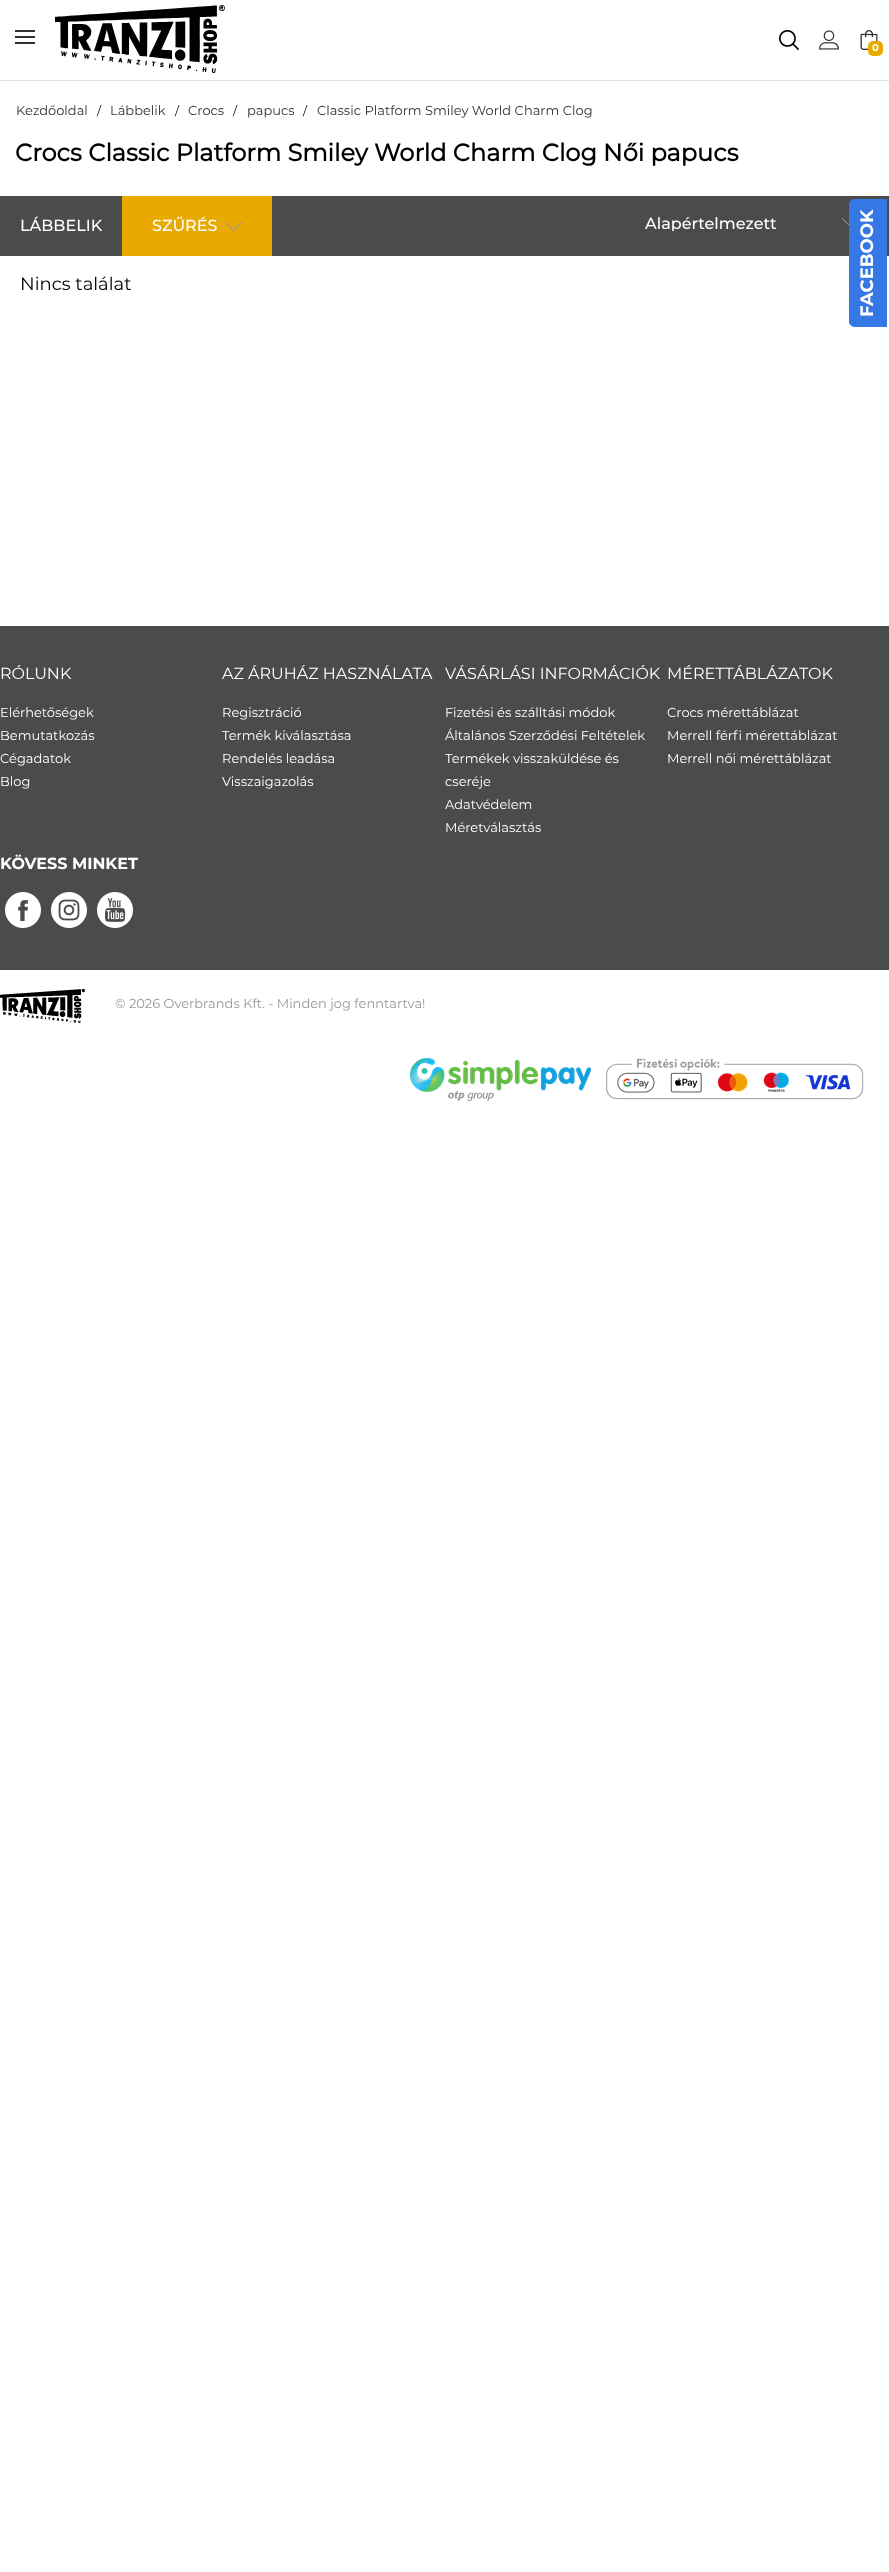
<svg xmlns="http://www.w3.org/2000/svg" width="889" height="2572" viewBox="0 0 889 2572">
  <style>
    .t1 { font: bold 10px 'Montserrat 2'; fill: #fff; }
    .t2 { font: 13px Montserrat; fill: #333; }
    .t3 { font: 12px Montserrat; fill: #000; }
    .t4 { font: bold 24px Montserrat; fill: #000; }
    .t5 { font: 500 16px Montserrat; fill: #fff; }
    .t6 { font: 18px Montserrat; fill: #000; }
    .t7 { font: bold 18px 'Montserrat 2'; fill: #fff; }
    .t8 { font: 16px Montserrat; fill: #fff; }
    .t9 { font: 13px Montserrat; fill: #fff; }
    .t10 { font: bold 16px 'Montserrat 2'; fill: #fff; }
    .t11 { font: 13px Montserrat; fill: #999; }
  </style>
  <defs>
    <clipPath id="clip1"><rect x="639" y="206" width="220" height="25"/></clipPath>
  </defs>
  <rect width="100%" height="100%" fill="#fff"/>
  <rect x="0" y="80" width="889" height="1" fill="#dedede"/>
  <image x="15" y="30" width="20" height="14" href="images/1.png"/>
  <image x="55" y="5" width="170" height="68" href="images/2.png"/>
  <image x="779" y="30" width="20" height="20" href="images/3.png"/>
  <image x="819" y="30" width="20" height="20" href="images/4.png"/>
  <image x="860" y="30" width="18" height="20" href="images/5.png"/>
  <rect x="868" y="41" width="15" height="15" rx="5" fill="#e8a900"/>
  <text x="872" y="51" class="t1">0</text>
  <text x="16" y="115" class="t2">Kezdőoldal</text>
  <text x="97" y="115" class="t3">/</text>
  <text x="110" y="115" class="t2">Lábbelik</text>
  <text x="175" y="115" class="t3">/</text>
  <text x="188" y="115" class="t2">Crocs</text>
  <text x="233" y="115" class="t3">/</text>
  <text x="247" y="115" class="t2">papucs</text>
  <text x="303" y="115" class="t3">/</text>
  <text x="317" y="115" class="t2">Classic Platform Smiley World Charm Clog</text>
  <text x="15" y="161" class="t4">Crocs Classic Platform Smiley World Charm Clog Női papucs</text>
  <rect x="0" y="196" width="889" height="60" fill="#4b4b4b"/>
  <text x="20" y="231" class="t5">LÁBBELIK</text>
  <rect x="122" y="196" width="150" height="60" fill="#e8a900"/>
  <text x="152" y="231" class="t5">SZŰRÉS</text>
  <image x="225" y="222" width="17" height="9" href="images/6.png"/>
  <g clip-path="url(#clip1)">
    <text x="645" y="229" class="t5">Alapértelmezett</text>
  </g>
  <image x="842" y="218" width="7" height="8" href="images/7.png"/>
  <text x="20" y="290" class="t6">Nincs találat</text>
  <path d="M849 322V204C849 202 852 199 854 199H887V327H854C852 327 849 324 849 322Z" fill="#3578e5"/>
  <text x="873" y="317" transform="rotate(-90 873 317)" class="t7">FACEBOOK</text>
  <rect x="0" y="626" width="889" height="344" fill="#4b4b4b"/>
  <text x="0" y="679" class="t8">RÓLUNK</text>
  <text x="0" y="717" class="t9">Elérhetőségek</text>
  <text x="0" y="740" class="t9">Bemutatkozás</text>
  <text x="0" y="763" class="t9">Cégadatok</text>
  <text x="0" y="786" class="t9">Blog</text>
  <text x="222" y="679" class="t8">AZ ÁRUHÁZ HASZNÁLATA</text>
  <text x="222" y="717" class="t9">Regisztráció</text>
  <text x="222" y="740" class="t9">Termék kiválasztása</text>
  <text x="222" y="763" class="t9">Rendelés leadása</text>
  <text x="222" y="786" class="t9">Visszaigazolás</text>
  <text x="445" y="679" class="t8">VÁSÁRLÁSI INFORMÁCIÓK</text>
  <text x="445" y="717" class="t9">Fizetési és szálltási módok</text>
  <text x="445" y="740" class="t9">Általános Szerződési Feltételek</text>
  <text x="445" y="763" class="t9">Termékek visszaküldése és</text>
  <text x="445" y="786" class="t9">cseréje</text>
  <text x="445" y="809" class="t9">Adatvédelem</text>
  <text x="445" y="832" class="t9">Méretválasztás</text>
  <text x="667" y="679" class="t8">MÉRETTÁBLÁZATOK</text>
  <text x="667" y="717" class="t9">Crocs mérettáblázat</text>
  <text x="667" y="740" class="t9">Merrell férfi mérettáblázat</text>
  <text x="667" y="763" class="t9">Merrell női mérettáblázat</text>
  <text x="0" y="869" class="t10">KÖVESS MINKET</text>
  <image x="5" y="892" width="36" height="36" href="images/8.png"/>
  <image x="51" y="892" width="36" height="36" href="images/9.png"/>
  <image x="97" y="892" width="36" height="36" href="images/10.png"/>
  <image x="0" y="989" width="85" height="34" href="images/11.png"/>
  <text x="115" y="1008" class="t11">© 2026 Overbrands Kft. - Minden jog fenntartva!</text>
  <image x="409" y="1057" width="455" height="45" href="images/12.png"/>
</svg>
